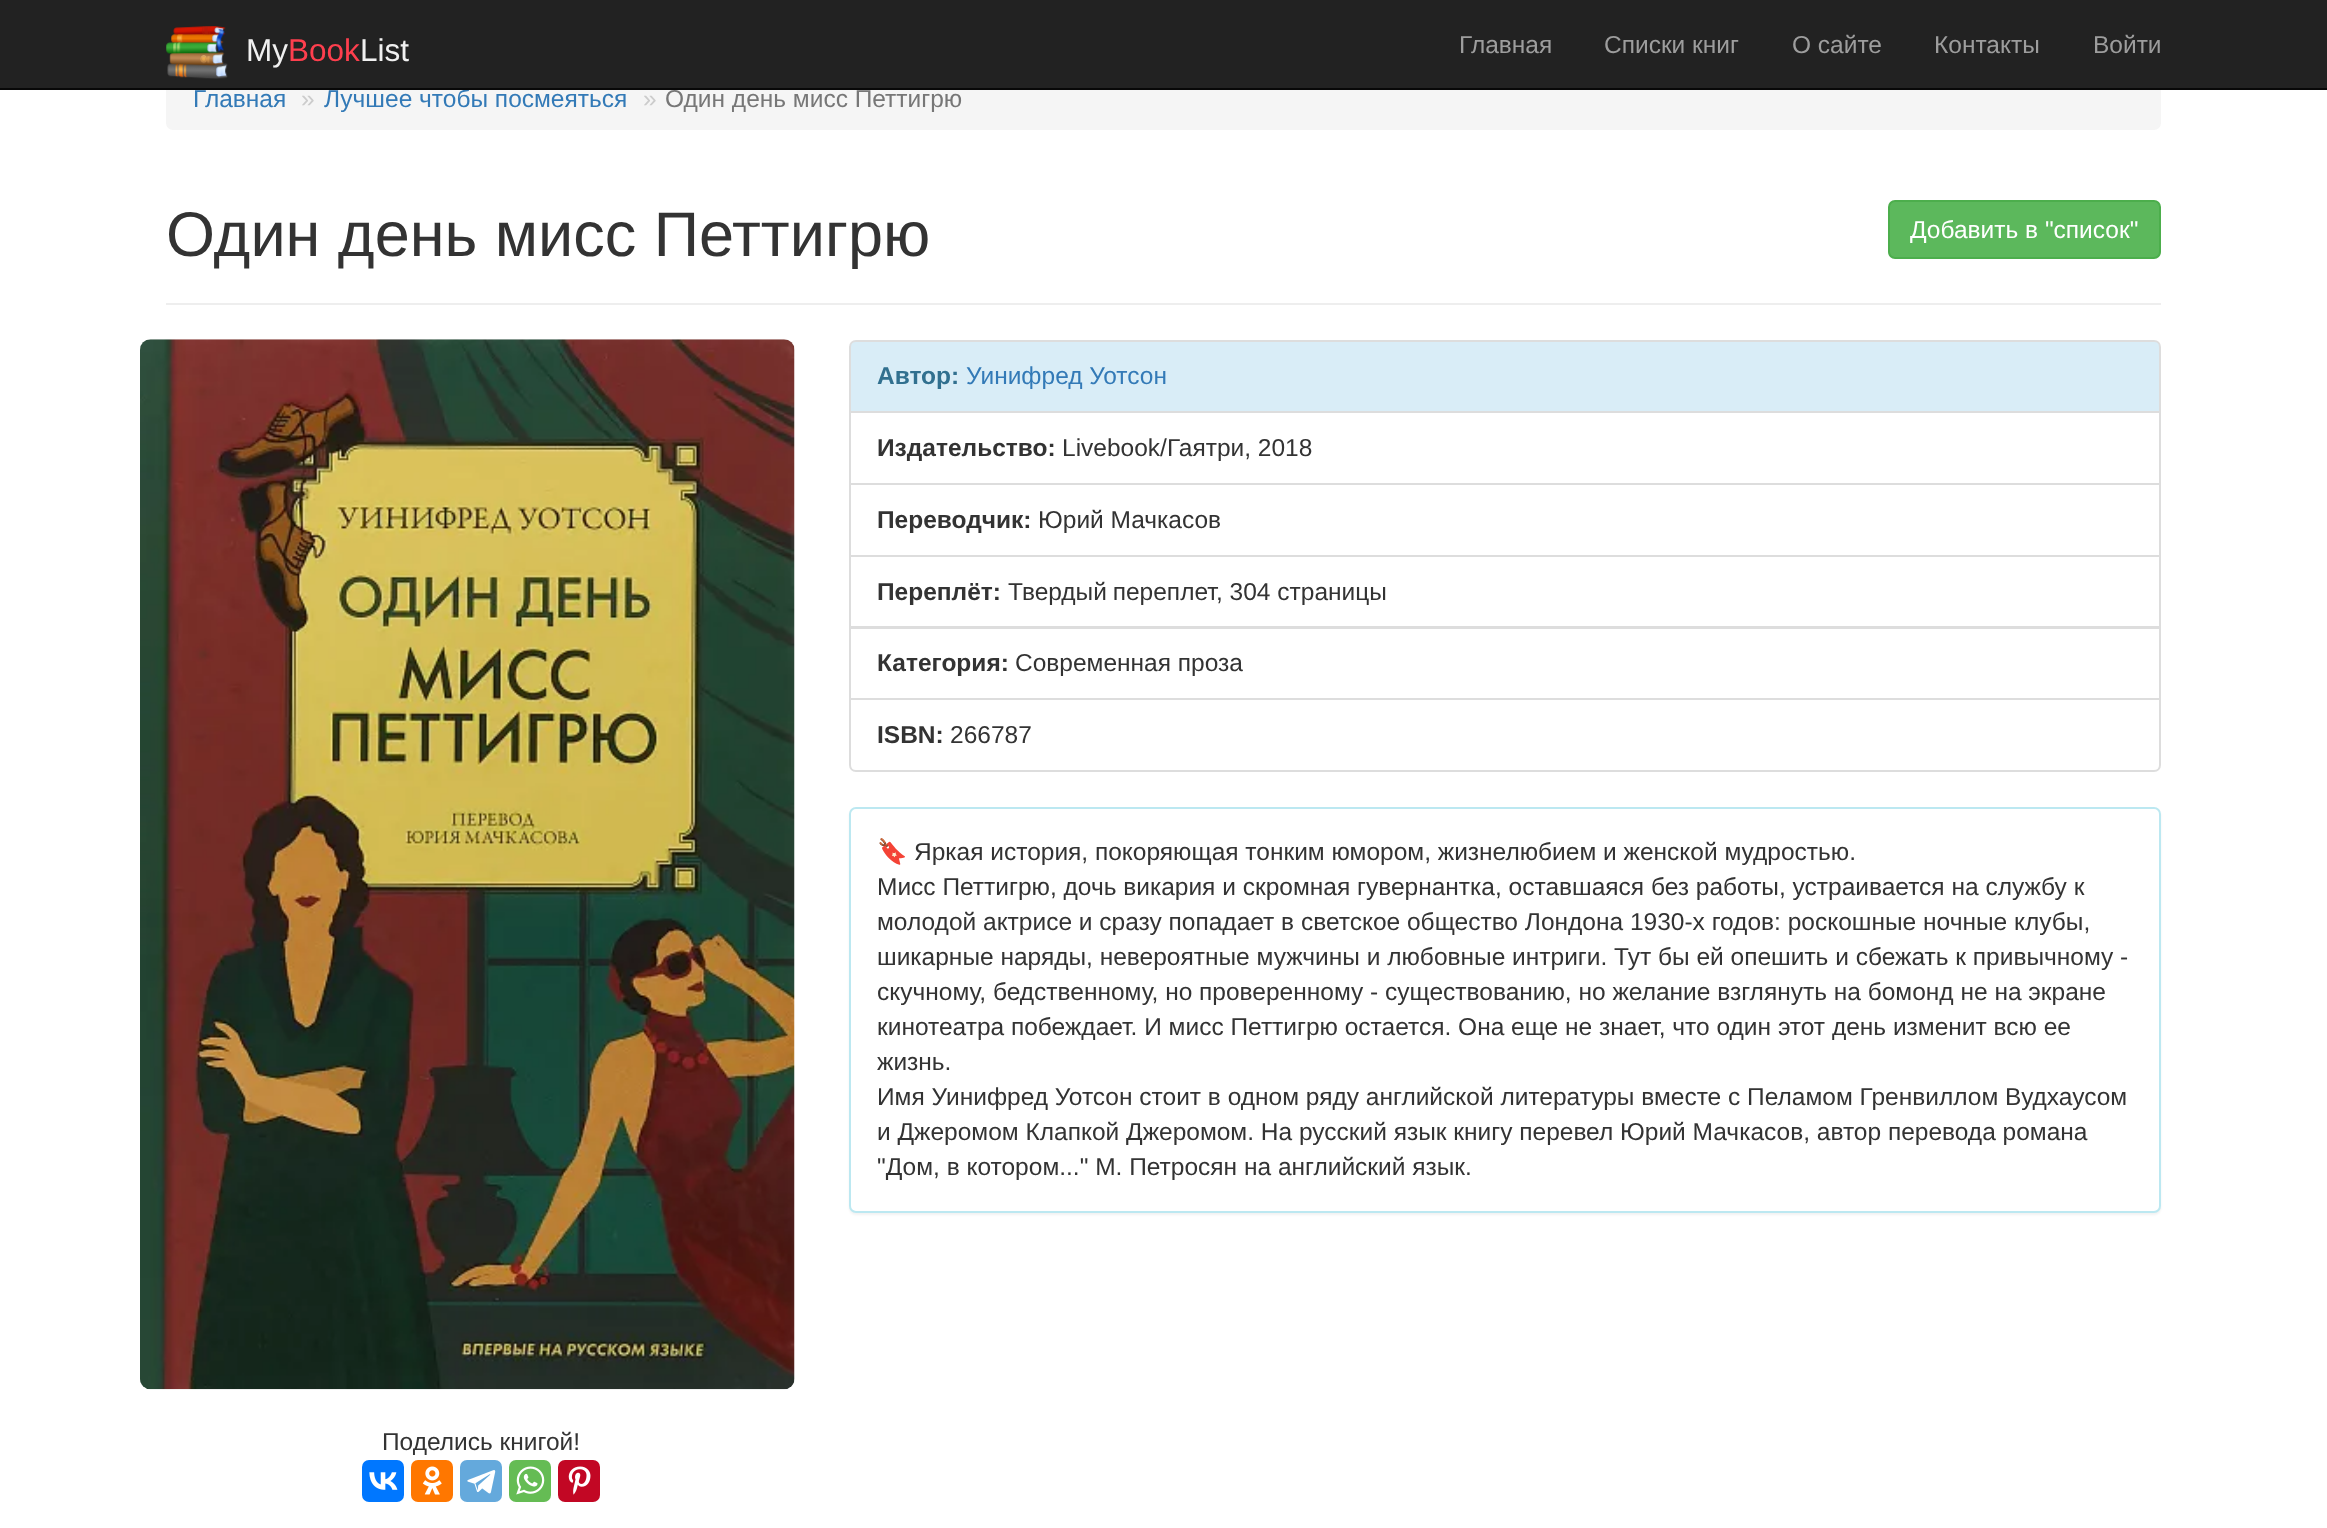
<svg xmlns="http://www.w3.org/2000/svg" width="2327" height="1528" viewBox="0 0 2327 1528">
  <style>
    .t1 { font: 24.5px Liberation Sans; fill: #337ab7; }
    .t2 { font: 24.5px Liberation Sans; fill: #777; }
    .t3 { font: 31.5px Liberation Sans; fill: #f0f0f0; }
    .t4 { font: 31.5px Liberation Sans; fill: #fe3f4e; }
    .t5 { font: 24.5px Liberation Sans; fill: #9d9d9d; }
    .t6 { font: 24.5px Liberation Sans; fill: #ccc; }
    .t7 { font: 63px Liberation Sans; fill: #333; }
    .t8 { font: 24.5px Liberation Sans; fill: #fff; }
    .t9 { font: bold 24.5px Liberation Sans; fill: #31708f; }
    .t10 { font: bold 24.5px Liberation Sans; fill: #333; }
    .t11 { font: 24.5px Liberation Sans; fill: #333; }
    .t12 { font: 24.5px Noto Color Emoji; fill: #333; }
  </style>
  <rect width="100%" height="100%" fill="#fff"/>
  <rect x="166" y="67" width="1995" height="63" rx="7" fill="#f5f5f5"/>
  <rect x="0" y="0" width="2327" height="88" fill="#222"/>
  <text x="324" y="107" class="t1">Лучшее чтобы посмеяться</text>
  <text x="665" y="107" class="t2">Один день мисс Петтигрю</text>
  <rect x="0" y="88" width="2327" height="2" fill="#080808"/>
  <image x="166" y="26" width="62" height="53" href="images/1.png"/>
  <text x="246" y="61" class="t3">My</text>
  <text x="288" y="61" class="t4">Book</text>
  <text x="360" y="61" class="t3">List</text>
  <text x="1459" y="53" class="t5">Главная</text>
  <text x="1604" y="53" class="t5">Списки книг</text>
  <text x="1792" y="53" class="t5">О сайте</text>
  <text x="1934" y="53" class="t5">Контакты</text>
  <text x="2093" y="53" class="t5">Войти</text>
  <text x="193" y="107" class="t1">Главная</text>
  <text x="301" y="107" class="t6">»</text>
  <text x="643" y="107" class="t6">»</text>
  <rect x="166" y="303" width="1995" height="2" fill="#eee"/>
  <text x="166" y="256" class="t7">Один день мисс Петтигрю</text>
  <rect x="1889" y="201" width="271" height="57" rx="6" fill="#5cb85c" stroke="#4cae4c" stroke-width="2"/>
  <text x="1910" y="238" class="t8">Добавить в "список"</text>
  <path d="M856 341H2154C2157.5 341 2160 343.5 2160 347V412H850V347C850 343.5 852.5 341 856 341Z" fill="#d9edf7" stroke="#ddd" stroke-width="2"/>
  <text x="877" y="384" class="t9">Автор:</text>
  <text x="966" y="384" class="t1">Уинифред Уотсон</text>
  <rect x="850" y="412" width="1310" height="72" fill="none" stroke="#ddd" stroke-width="2"/>
  <text x="877" y="456" class="t10">Издательство:</text>
  <text x="1062" y="456" class="t11">Livebook/Гаятри, 2018</text>
  <rect x="850" y="484" width="1310" height="72" fill="none" stroke="#ddd" stroke-width="2"/>
  <text x="877" y="528" class="t10">Переводчик:</text>
  <text x="1038" y="528" class="t11">Юрий Мачкасов</text>
  <rect x="850" y="556" width="1310" height="71" fill="none" stroke="#ddd" stroke-width="2"/>
  <text x="877" y="600" class="t10">Переплёт:</text>
  <text x="1008" y="600" word-spacing="-1" class="t11">Твердый переплет</text>
  <text x="1216" y="600" class="t11">, 304 страницы</text>
  <rect x="850" y="628" width="1310" height="71" fill="none" stroke="#ddd" stroke-width="2"/>
  <text x="877" y="671" class="t10">Категория:</text>
  <text x="1015" y="671" class="t11">Современная проза</text>
  <path d="M850 699H2160V765C2160 768.5 2157.5 771 2154 771H856C852.5 771 850 768.5 850 765Z" fill="#fff" stroke="#ddd" stroke-width="2"/>
  <text x="877" y="743" class="t10">ISBN:</text>
  <text x="950" y="743" class="t11">266787</text>
  <rect x="849" y="809" width="1312" height="406" rx="7" fill="#0000000d" filter="blur(1px)"/>
  <rect x="850" y="808" width="1310" height="404" rx="6" fill="#fff" stroke="#bce8f1" stroke-width="2"/>
  <text x="877" y="860" class="t12">🔖</text>
  <text x="914" y="860" class="t11">Яркая история, покоряющая тонким юмором, жизнелюбием и женской мудростью.</text>
  <text x="877" y="895" class="t11">Мисс Петтигрю, дочь викария и скромная гувернантка, оставшаяся без работы, устраивается на службу к</text>
  <text x="877" y="930" class="t11">молодой актрисе и сразу попадает в светское общество Лондона 1930-х годов: роскошные ночные клубы,</text>
  <text x="877" y="965" class="t11">шикарные наряды, невероятные мужчины и любовные интриги. Тут бы ей опешить и сбежать к привычному -</text>
  <text x="877" y="1000" class="t11">скучному, бедственному, но проверенному - существованию, но желание взглянуть на бомонд не на экране</text>
  <text x="877" y="1035" class="t11">кинотеатра побеждает. И мисс Петтигрю остается. Она еще не знает, что один этот день изменит всю ее</text>
  <text x="877" y="1070" class="t11">жизнь.</text>
  <text x="877" y="1105" class="t11">Имя Уинифред Уотсон стоит в одном ряду английской литературы вместе с Пеламом Гренвиллом Вудхаусом</text>
  <text x="877" y="1140" class="t11">и Джеромом Клапкой Джеромом. На русский язык книгу перевел Юрий Мачкасов, автор перевода романа</text>
  <text x="877" y="1175" class="t11">"Дом, в котором..." М. Петросян на английский язык.</text>
  <image x="140" y="339" width="655" height="1051" href="images/2.png"/>
  <text x="382" y="1450" class="t11">Поделись книгой!</text>
  <rect x="362" y="1460" width="42" height="42" rx="7" fill="#07f"/>
  <image x="369" y="1472" width="29" height="18" href="images/3.png"/>
  <rect x="411" y="1460" width="42" height="42" rx="7" fill="#f70"/>
  <image x="422" y="1466" width="20" height="29" href="images/4.png"/>
  <rect x="460" y="1460" width="42" height="42" rx="7" fill="#64a9dc"/>
  <image x="467" y="1470" width="29" height="24" href="images/5.png"/>
  <rect x="509" y="1460" width="42" height="42" rx="7" fill="#65bc54"/>
  <image x="516" y="1466" width="29" height="29" href="images/6.png"/>
  <rect x="558" y="1460" width="42" height="42" rx="7" fill="#c20724"/>
  <image x="568" y="1466" width="23" height="29" href="images/7.png"/>
</svg>
